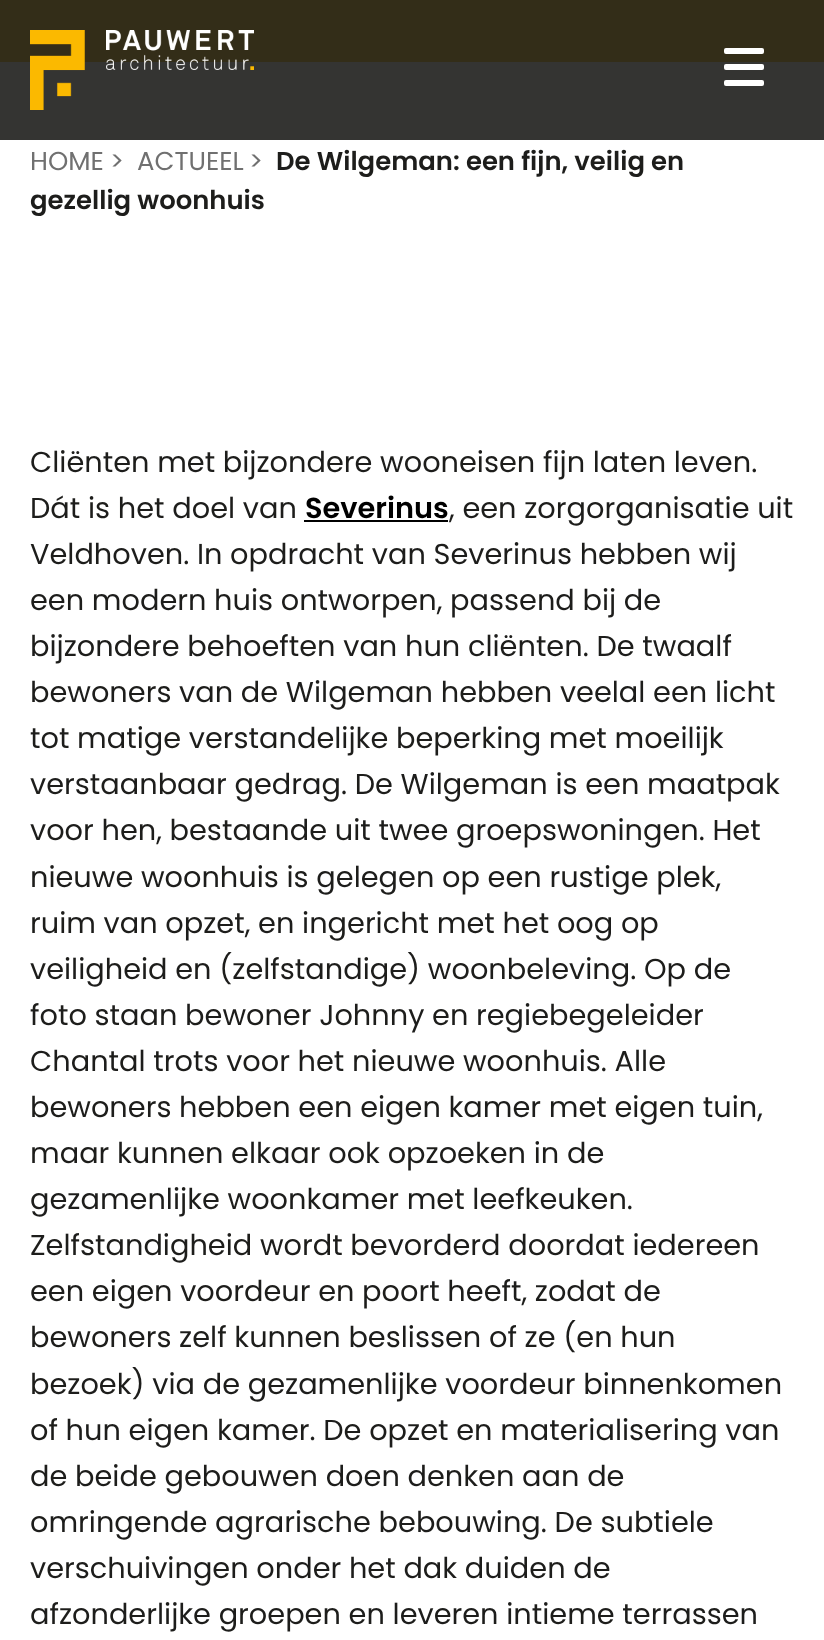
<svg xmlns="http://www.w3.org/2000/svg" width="824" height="1640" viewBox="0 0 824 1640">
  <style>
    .t1 { font: 25.9px Poppins; fill: #707070; }
    .t2 { font: 600 25.9px Poppins; fill: #1d1d1b; }
    .t3 { font: 28.8px Poppins; fill: #1d1d1b; }
    .t4 { font: 600 28.8px Poppins; fill: #000; }
  </style>
  <rect width="100%" height="100%" fill="#fff"/>
  <rect x="0" y="62" width="824" height="78" fill="#343432"/>
  <rect x="0" y="0" width="824" height="62" fill="#332d18"/>
  <image x="30" y="30" width="224" height="80" href="images/1.png"/>
  <rect x="724" y="48" width="40" height="6" rx="2" fill="#fff"/>
  <rect x="724" y="64" width="40" height="6" rx="2" fill="#fff"/>
  <rect x="724" y="80" width="40" height="6" rx="2" fill="#fff"/>
  <text x="30" y="170" class="t1">HOME</text>
  <text x="110" y="170" class="t1">&gt;</text>
  <text x="137" y="170" class="t1">ACTUEEL</text>
  <text x="249" y="170" class="t1">&gt;</text>
  <text x="276" y="170" class="t2">De Wilgeman: een fijn, veilig en</text>
  <text x="30" y="209" class="t2">gezellig woonhuis</text>
  <text x="30" y="472" class="t3">Cliënten met bijzondere wooneisen fijn laten leven.</text>
  <text x="30" y="518" class="t3">Dát is het doel van</text>
  <text x="305" y="518" class="t4">Severinus</text>
  <rect x="304" y="520" width="144" height="2" fill="#000"/>
  <text x="449" y="518" class="t3">, een zorgorganisatie uit</text>
  <text x="30" y="564" class="t3">Veldhoven. In opdracht van Severinus hebben wij</text>
  <text x="30" y="610" class="t3">een modern huis ontworpen, passend bij de</text>
  <text x="30" y="656" class="t3">bijzondere behoeften van hun cliënten. De twaalf</text>
  <text x="30" y="702" class="t3">bewoners van de Wilgeman hebben veelal een licht</text>
  <text x="30" y="748" class="t3">tot matige verstandelijke beperking met moeilijk</text>
  <text x="30" y="794" class="t3">verstaanbaar gedrag. De Wilgeman is een maatpak</text>
  <text x="30" y="840" class="t3">voor hen, bestaande uit twee groepswoningen. Het</text>
  <text x="30" y="887" class="t3">nieuwe woonhuis is gelegen op een rustige plek,</text>
  <text x="30" y="933" class="t3">ruim van opzet, en ingericht met het oog op</text>
  <text x="30" y="979" class="t3">veiligheid en (zelfstandige) woonbeleving. Op de</text>
  <text x="30" y="1025" class="t3">foto staan bewoner Johnny en regiebegeleider</text>
  <text x="30" y="1071" class="t3">Chantal trots voor het nieuwe woonhuis. Alle</text>
  <text x="30" y="1117" class="t3">bewoners hebben een eigen kamer met eigen tuin,</text>
  <text x="30" y="1163" class="t3">maar kunnen elkaar ook opzoeken in de</text>
  <text x="30" y="1209" class="t3">gezamenlijke woonkamer met leefkeuken.</text>
  <text x="30" y="1255" class="t3">Zelfstandigheid wordt bevorderd doordat iedereen</text>
  <text x="30" y="1301" class="t3">een eigen voordeur en poort heeft, zodat de</text>
  <text x="30" y="1347" class="t3">bewoners zelf kunnen beslissen of ze (en hun</text>
  <text x="30" y="1394" class="t3">bezoek) via de gezamenlijke voordeur binnenkomen</text>
  <text x="30" y="1440" class="t3">of hun eigen kamer. De opzet en materialisering van</text>
  <text x="30" y="1486" class="t3">de beide gebouwen doen denken aan de</text>
  <text x="30" y="1532" class="t3">omringende agrarische bebouwing. De subtiele</text>
  <text x="30" y="1578" class="t3">verschuivingen onder het dak duiden de</text>
  <text x="30" y="1624" class="t3">afzonderlijke groepen en leveren intieme terrassen</text>
</svg>
